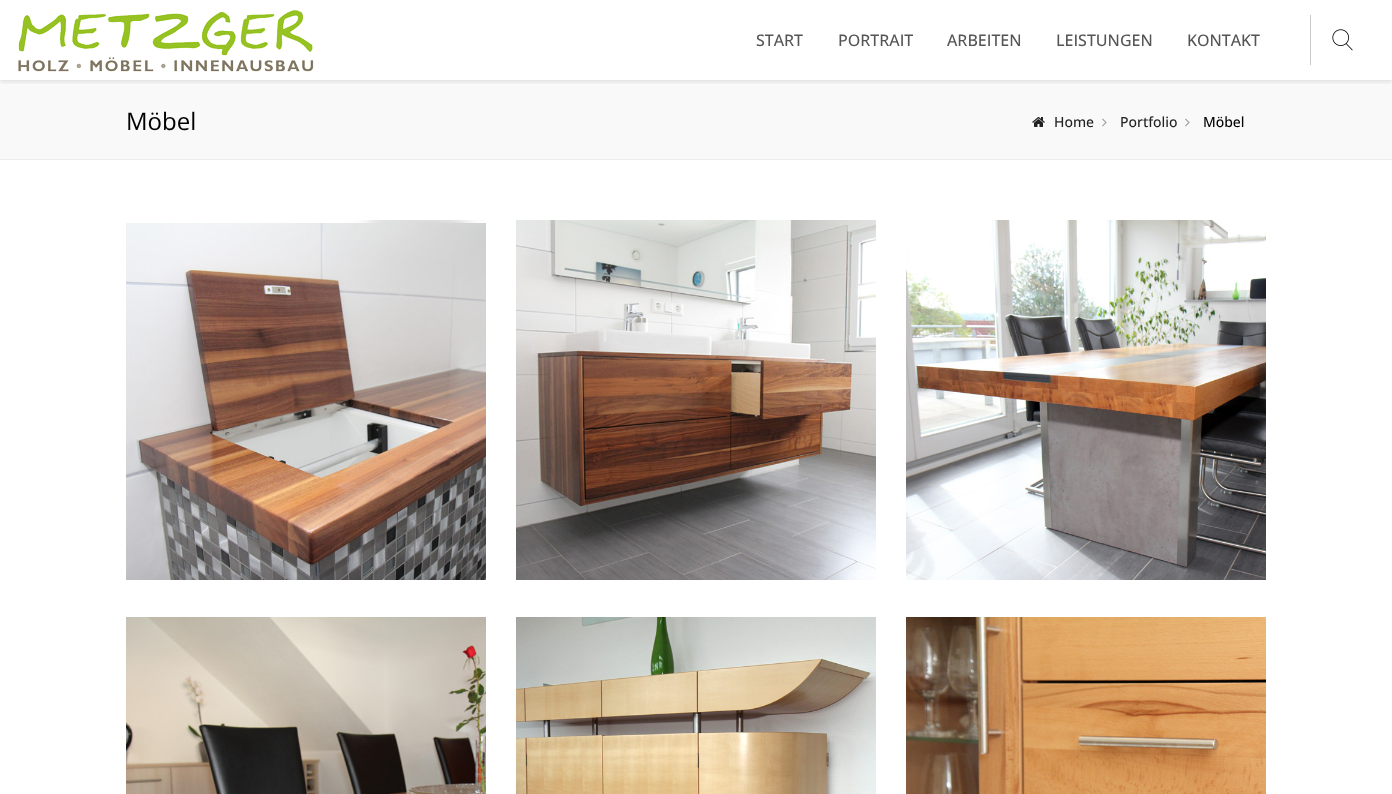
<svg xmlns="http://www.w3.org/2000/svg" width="1392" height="794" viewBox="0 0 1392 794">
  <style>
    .t1 { font: 500 16px Open Sans; fill: #555; }
    .t2 { font: 24px Open Sans; fill: #000; }
    .t3 { font: 500 14px Open Sans; fill: #222; }
    .t4 { font: 500 14px Open Sans; fill: #000; }
  </style>
  <defs>
    <clipPath id="clip1"><rect x="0" y="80" width="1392" height="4"/></clipPath>
  </defs>
  <rect width="100%" height="100%" fill="#fff"/>
  <rect x="0" y="80" width="1392" height="79" fill="#f9f9f9"/>
  <g clip-path="url(#clip1)">
    <rect x="0" y="2" width="1392" height="80" fill="#0000001a" filter="blur(2.5px)"/>
  </g>
  <image x="18" y="10" width="296" height="62" href="images/1.png"/>
  <text x="756" y="46" class="t1">START</text>
  <text x="838" y="46" class="t1">PORTRAIT</text>
  <text x="947" y="46" class="t1">ARBEITEN</text>
  <text x="1056" y="46" class="t1">LEISTUNGEN</text>
  <text x="1187" y="46" class="t1">KONTAKT</text>
  <rect x="1310" y="15" width="1" height="50" fill="#ccc"/>
  <image x="1332" y="29" width="21" height="22" href="images/2.png"/>
  <rect x="0" y="159" width="1392" height="1" fill="#ededed"/>
  <text x="126" y="130" class="t2">Möbel</text>
  <image x="1032" y="117" width="13" height="10" href="images/3.png"/>
  <text x="1054" y="127" class="t3">Home</text>
  <image x="1102" y="118" width="5" height="9" href="images/4.png"/>
  <text x="1120" y="127" class="t3">Portfolio</text>
  <image x="1185" y="118" width="5" height="9" href="images/4.png"/>
  <text x="1203" y="127" class="t4">Möbel</text>
  <image x="126" y="220" width="360" height="360" href="images/5.png"/>
  <image x="516" y="220" width="360" height="360" href="images/6.png"/>
  <image x="906" y="220" width="360" height="360" href="images/7.png"/>
  <image x="126" y="617" width="360" height="177" href="images/8.png"/>
  <image x="516" y="617" width="360" height="177" href="images/9.png"/>
  <image x="906" y="617" width="360" height="177" href="images/10.png"/>
</svg>
